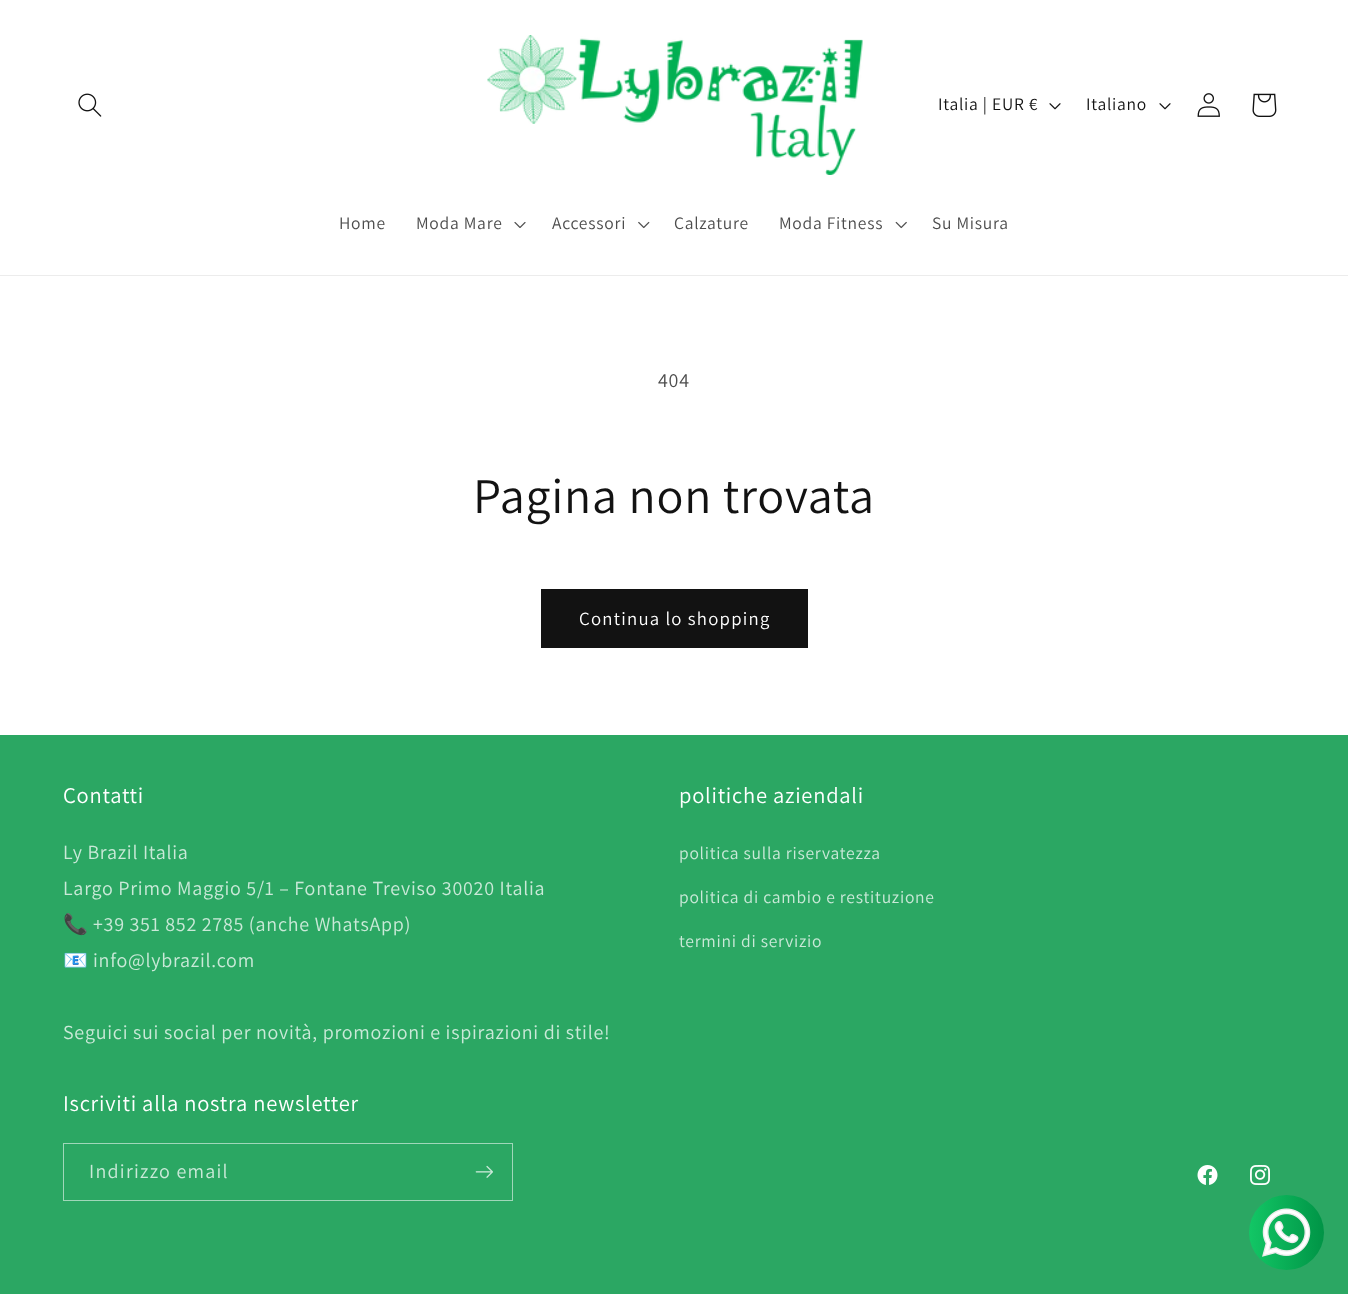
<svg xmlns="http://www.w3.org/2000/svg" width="1348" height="1294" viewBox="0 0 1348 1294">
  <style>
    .t1 { font: 17.5px Assistant; letter-spacing: 0.75px; fill: #121212; }
    .t2 { font: 17.5px Assistant; letter-spacing: 0.75px; fill: #4d4d4d; }
    .t3 { font: 20px Assistant; letter-spacing: 0.75px; fill: #4d4d4d; }
    .t4 { font: 50px Assistant; letter-spacing: 0.75px; fill: #121212; }
    .t5 { font: 18.75px Assistant; letter-spacing: 1.25px; fill: #fff; }
    .t6 { font: 22.5px Assistant; letter-spacing: 0.75px; fill: #fff; }
    .t7 { font: 20px Assistant; letter-spacing: 0.75px; fill: #cae9d8; }
    .t8 { font: 20px Noto Color Emoji; letter-spacing: 0.75px; fill: #cae9d8; }
    .t9 { font: 17.5px Assistant; letter-spacing: 0.75px; fill: #cae9d8; }
    .t10 { font: 20px Assistant; letter-spacing: 1.25px; fill: #cae9d8; }
  </style>
  <defs>
    <linearGradient id="g1" gradientUnits="userSpaceOnUse" x1="1249" y1="1233" x2="1324" y2="1233"><stop offset="0.01" stop-color="#12c665"/><stop offset="1" stop-color="#009446"/></linearGradient>
  </defs>
  <rect width="100%" height="100%" fill="#fff"/>
  <rect x="0" y="275" width="1348" height="1" fill="#ececec"/>
  <image x="78" y="93" width="24" height="24" href="images/1.png"/>
  <image x="487" y="35" width="376" height="140" href="images/2.png"/>
  <text x="938" y="110" class="t1">Italia | EUR €</text>
  <image x="1049" y="103" width="12" height="7" href="images/3.png"/>
  <text x="1086" y="110" class="t1">Italiano</text>
  <image x="1159" y="103" width="12" height="7" href="images/3.png"/>
  <image x="1197" y="93" width="23" height="24" href="images/4.png"/>
  <image x="1252" y="93" width="25" height="24" href="images/5.png"/>
  <text x="339" y="229" class="t2">Home</text>
  <text x="416" y="229" class="t2">Moda Mare</text>
  <image x="514" y="222" width="12" height="6" href="images/6.png"/>
  <text x="552" y="229" class="t2">Accessori</text>
  <image x="638" y="221" width="12" height="8" href="images/7.png"/>
  <text x="674" y="229" class="t2">Calzature</text>
  <text x="779" y="229" class="t2">Moda Fitness</text>
  <image x="895" y="221" width="12" height="8" href="images/8.png"/>
  <text x="932" y="229" class="t2">Su Misura</text>
  <text x="658" y="387" class="t3">404</text>
  <text x="473" y="513" class="t4">Pagina non trovata</text>
  <rect x="541" y="589" width="267" height="59" fill="#121212"/>
  <text x="579" y="625" class="t5">Continua lo shopping</text>
  <rect x="0" y="735" width="1348" height="559" fill="#2ba763"/>
  <text x="63" y="803" class="t6">Contatti</text>
  <text x="63" y="859" class="t7">Ly Brazil Italia</text>
  <text x="63" y="895" class="t7">Largo Primo Maggio 5/1 – Fontane Treviso 30020 Italia</text>
  <text x="63" y="931" class="t8">📞</text>
  <text x="93" y="931" class="t7">+39 351 852 2785 (anche WhatsApp)</text>
  <text x="63" y="967" class="t8">📧</text>
  <text x="93" y="967" class="t7">info@lybrazil.com</text>
  <text x="63" y="1039" class="t7">Seguici sui social per novità, promozioni e ispirazioni di stile!</text>
  <text x="679" y="803" class="t6">politiche aziendali</text>
  <text x="679" y="859" class="t9">politica sulla riservatezza</text>
  <text x="679" y="903" class="t9">politica di cambio e restituzione</text>
  <text x="679" y="947" class="t9">termini di servizio</text>
  <text x="63" y="1111" class="t6">Iscriviti alla nostra newsletter</text>
  <rect x="63.5" y="1143.5" width="449" height="57" fill="none" stroke="#a0d7b9"/>
  <text x="89" y="1178" class="t10">Indirizzo email</text>
  <image x="475" y="1165" width="18" height="13" href="images/9.png"/>
  <image x="1197" y="1165" width="21" height="20" href="images/10.png"/>
  <image x="1250" y="1165" width="20" height="20" href="images/11.png"/>
  <circle cx="1286.5" cy="1232.5" r="37.5" fill="url(#g1)"/>
  <image x="1262" y="1208" width="49" height="49" href="images/12.png"/>
</svg>
